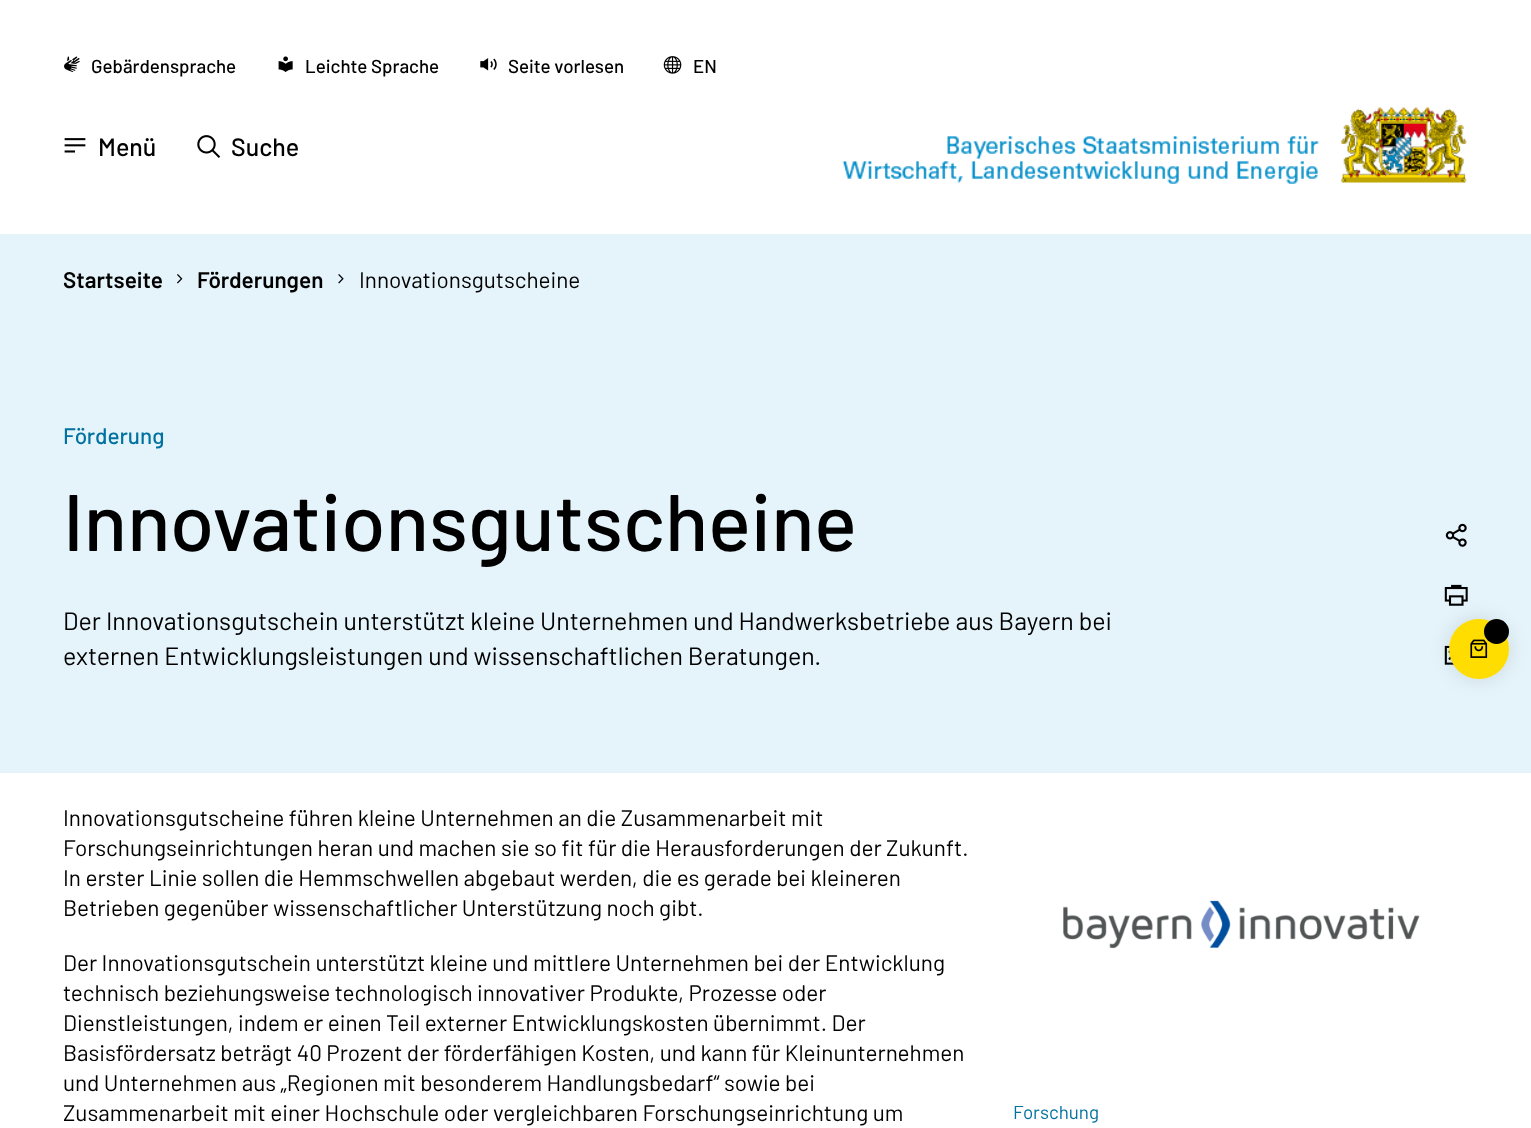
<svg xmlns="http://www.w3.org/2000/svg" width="1531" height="1128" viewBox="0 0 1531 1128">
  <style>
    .t1 { font: 500 18.75px Barlow; fill: #000; }
    .t2 { font: 500 25px Barlow; fill: #000; }
    .t3 { font: 600 22.5px Barlow; fill: #000; }
    .t4 { font: 22.5px Barlow; fill: #000; }
    .t5 { font: 500 22.5px Barlow; fill: #0071a1; }
    .t6 { font: 500 80px Barlow; fill: #000; }
    .t7 { font: 25px Barlow; fill: #000; }
    .t8 { font: 18.75px Barlow; fill: #0071a1; }
  </style>
  <rect width="100%" height="100%" fill="#fff"/>
  <image x="64" y="56" width="16" height="17" href="images/1.png"/>
  <text x="91" y="73" class="t1">Gebärdensprache</text>
  <image x="278" y="56" width="15" height="16" href="images/2.png"/>
  <text x="305" y="73" class="t1">Leichte Sprache</text>
  <image x="480" y="58" width="17" height="13" href="images/3.png"/>
  <text x="508" y="73" class="t1">Seite vorlesen</text>
  <image x="663" y="56" width="19" height="18" href="images/4.png"/>
  <text x="693" y="73" class="t1">EN</text>
  <image x="64" y="138" width="22" height="15" href="images/5.png"/>
  <text x="98" y="156" class="t2">Menü</text>
  <image x="197" y="135" width="24" height="23" href="images/6.png"/>
  <text x="231" y="156" class="t2">Suche</text>
  <image x="842" y="107" width="625" height="77" href="images/7.png"/>
  <rect x="0" y="234" width="1531" height="539" fill="#e5f4fa"/>
  <text x="63" y="288" class="t3">Startseite</text>
  <image x="177" y="274" width="6" height="10" href="images/8.png"/>
  <text x="197" y="288" class="t3">Förderungen</text>
  <image x="338" y="274" width="6" height="10" href="images/9.png"/>
  <text x="359" y="288" class="t4">Innovationsgutscheine</text>
  <text x="63" y="444" class="t5">Förderung</text>
  <text x="63" y="551" class="t6">Innovationsgutscheine</text>
  <text x="63" y="630" class="t7">Der Innovationsgutschein unterstützt kleine Unternehmen und Handwerksbetriebe aus Bayern bei</text>
  <text x="63" y="665" class="t7">externen Entwicklungsleistungen und wissenschaftlichen Beratungen.</text>
  <image x="1445" y="523" width="22" height="24" href="images/10.png"/>
  <image x="1444" y="584" width="24" height="22" href="images/11.png"/>
  <image x="1444" y="645" width="10" height="20" href="images/12.png"/>
  <text x="63" y="826" class="t4">Innovationsgutscheine führen kleine Unternehmen an die Zusammenarbeit mit</text>
  <text x="63" y="856" class="t4">Forschungseinrichtungen heran und machen sie so fit für die Herausforderungen der Zukunft.</text>
  <text x="63" y="886" class="t4">In erster Linie sollen die Hemmschwellen abgebaut werden, die es gerade bei kleineren</text>
  <text x="63" y="916" class="t4">Betrieben gegenüber wissenschaftlicher Unterstützung noch gibt.</text>
  <text x="63" y="971" class="t4">Der Innovationsgutschein unterstützt kleine und mittlere Unternehmen bei der Entwicklung</text>
  <text x="63" y="1001" class="t4">technisch beziehungsweise technologisch innovativer Produkte, Prozesse oder</text>
  <text x="63" y="1031" class="t4">Dienstleistungen, indem er einen Teil externer Entwicklungskosten übernimmt. Der</text>
  <text x="63" y="1061" class="t4">Basisfördersatz beträgt 40 Prozent der förderfähigen Kosten, und kann für Kleinunternehmen</text>
  <text x="63" y="1091" class="t4">und Unternehmen aus „Regionen mit besonderem Handlungsbedarf“ sowie bei</text>
  <text x="63" y="1121" class="t4">Zusammenarbeit mit einer Hochschule oder vergleichbaren Forschungseinrichtung um</text>
  <image x="1063" y="900" width="357" height="49" href="images/13.png"/>
  <text x="1013" y="1119" class="t8">Forschung</text>
  <rect x="1448" y="618" width="62" height="62" rx="31" fill="#0000001a" filter="blur(9.5px)"/>
  <circle cx="1479" cy="649" r="30" fill="#fd0"/>
  <image x="1470" y="639" width="18" height="19" href="images/14.png"/>
  <circle cx="1496.5" cy="631.5" r="12.5" fill="#000"/>
</svg>
